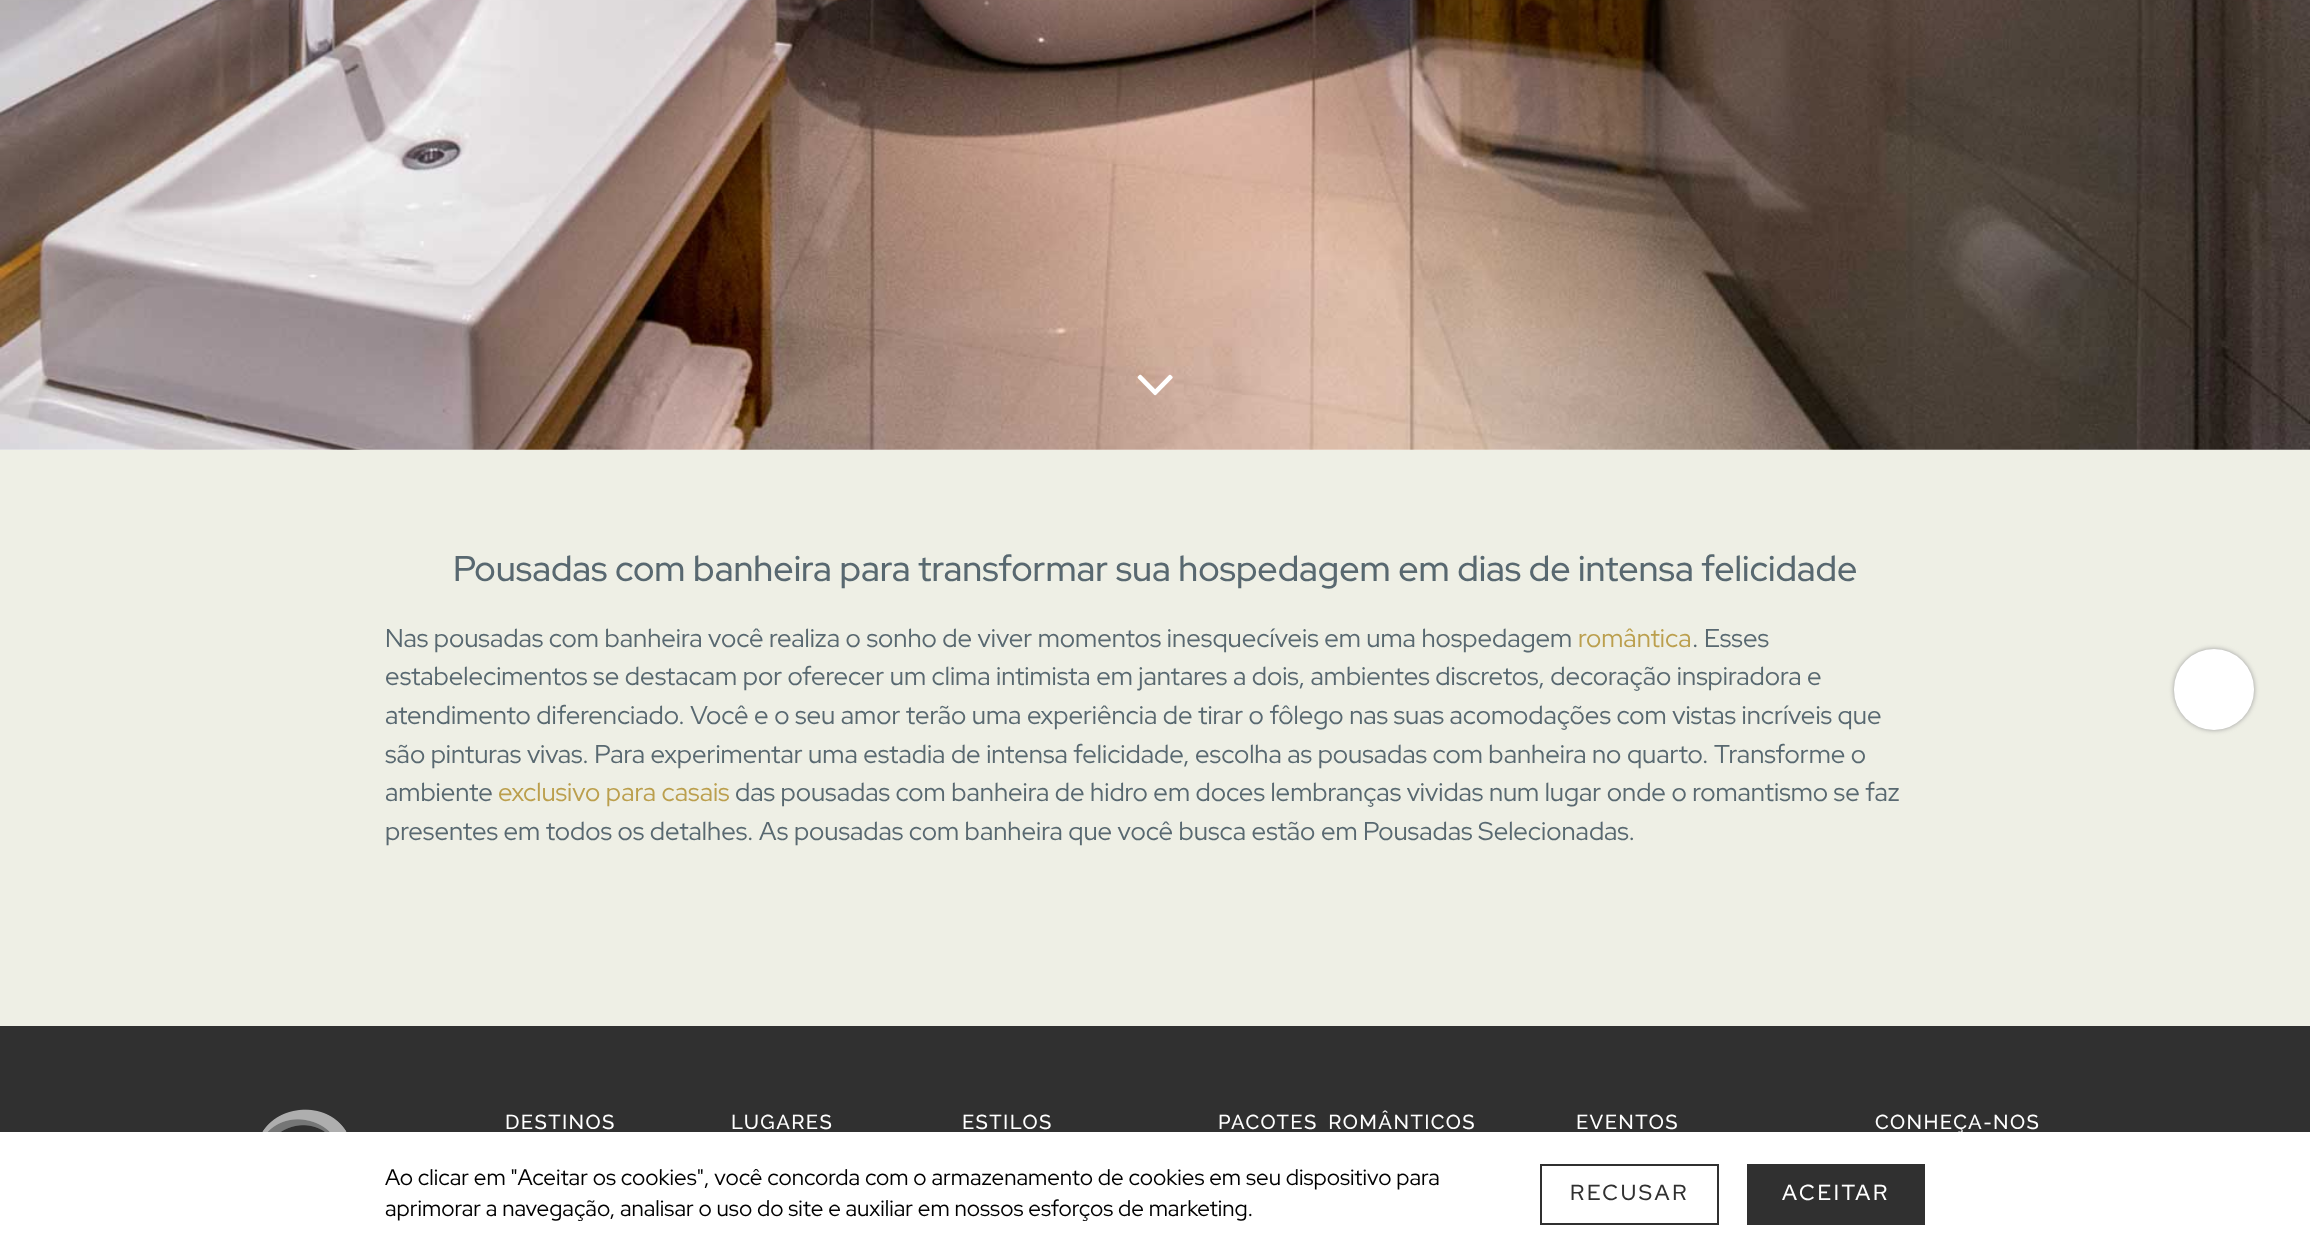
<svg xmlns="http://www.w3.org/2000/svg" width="2310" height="1254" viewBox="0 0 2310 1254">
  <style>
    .t1 { font: 500 35.85px Red Hat Display; fill: #586870; }
    .t2 { font: 25.75px Red Hat Display; fill: #586870; }
    .t3 { font: 25.75px Red Hat Display; fill: #bb9f4d; }
    .t4 { font: 500 20.2px Raleway; letter-spacing: 1.4px; fill: #fff; }
    .t5 { font: 22.4px Red Hat Display; fill: #000; }
    .t6 { font: 500 21.75px Red Hat Display; letter-spacing: 2.75px; fill: #303030; }
    .t7 { font: 500 21.75px Red Hat Display; letter-spacing: 2.75px; fill: #fff; }
  </style>
  <rect width="100%" height="100%" fill="#fff"/>
  <image x="0" y="0" width="2310" height="450" href="images/1.png"/>
  <image x="1137" y="374" width="36" height="22" href="images/2.png"/>
  <rect x="0" y="450" width="2310" height="576" fill="#eeefe5"/>
  <text x="453" y="581" class="t1">Pousadas com banheira para transformar sua hospedagem em dias de intensa felicidade</text>
  <text x="385" y="647" class="t2">Nas pousadas com banheira você realiza o sonho de viver momentos inesquecíveis em uma hospedagem</text>
  <text x="1578" y="647" class="t3">romântica</text>
  <text x="1692" y="647" class="t2">. Esses</text>
  <text x="385" y="685" class="t2">estabelecimentos se destacam por oferecer um clima intimista em jantares a dois, ambientes discretos, decoração inspiradora e</text>
  <text x="385" y="724" class="t2">atendimento diferenciado. Você e o seu amor terão uma experiência de tirar o fôlego nas suas acomodações com vistas incríveis que</text>
  <text x="385" y="763" class="t2">são pinturas vivas. Para experimentar uma estadia de intensa felicidade, escolha as pousadas com banheira no quarto. Transforme o</text>
  <text x="385" y="801" class="t2">ambiente</text>
  <text x="498" y="801" class="t3">exclusivo para casais</text>
  <text x="735" y="801" class="t2">das pousadas com banheira de hidro em doces lembranças vividas num lugar onde o romantismo se faz</text>
  <text x="385" y="840" class="t2">presentes em todos os detalhes. As pousadas com banheira que você busca estão em Pousadas Selecionadas.</text>
  <rect x="2174" y="649" width="80" height="81" rx="40" fill="#999" filter="blur(2.5px)"/>
  <rect x="2174" y="649" width="80" height="81" rx="40" fill="#fff"/>
  <rect x="0" y="1026" width="2310" height="106" fill="#303030"/>
  <image x="262" y="1109" width="85" height="23" href="images/3.png"/>
  <text x="505" y="1129" class="t4">DESTINOS</text>
  <text x="731" y="1129" class="t4">LUGARES</text>
  <text x="962" y="1129" class="t4">ESTILOS</text>
  <text x="1218" y="1129" word-spacing="4" class="t4">PACOTES ROMÂNTICOS</text>
  <text x="1576" y="1129" class="t4">EVENTOS</text>
  <text x="1875" y="1129" class="t4">CONHEÇA-NOS</text>
  <text x="385" y="1185" class="t5">Ao clicar em "Aceitar os cookies", você concorda com o armazenamento de cookies em seu dispositivo para</text>
  <text x="385" y="1216" class="t5">aprimorar a navegação, analisar o uso do site e auxiliar em nossos esforços de marketing.</text>
  <rect x="1541" y="1165" width="177" height="59" fill="none" stroke="#303030" stroke-width="2"/>
  <text x="1570" y="1200" class="t6">RECUSAR</text>
  <rect x="1747" y="1164" width="178" height="61" fill="#303030"/>
  <text x="1782" y="1200" class="t7">ACEITAR</text>
</svg>
